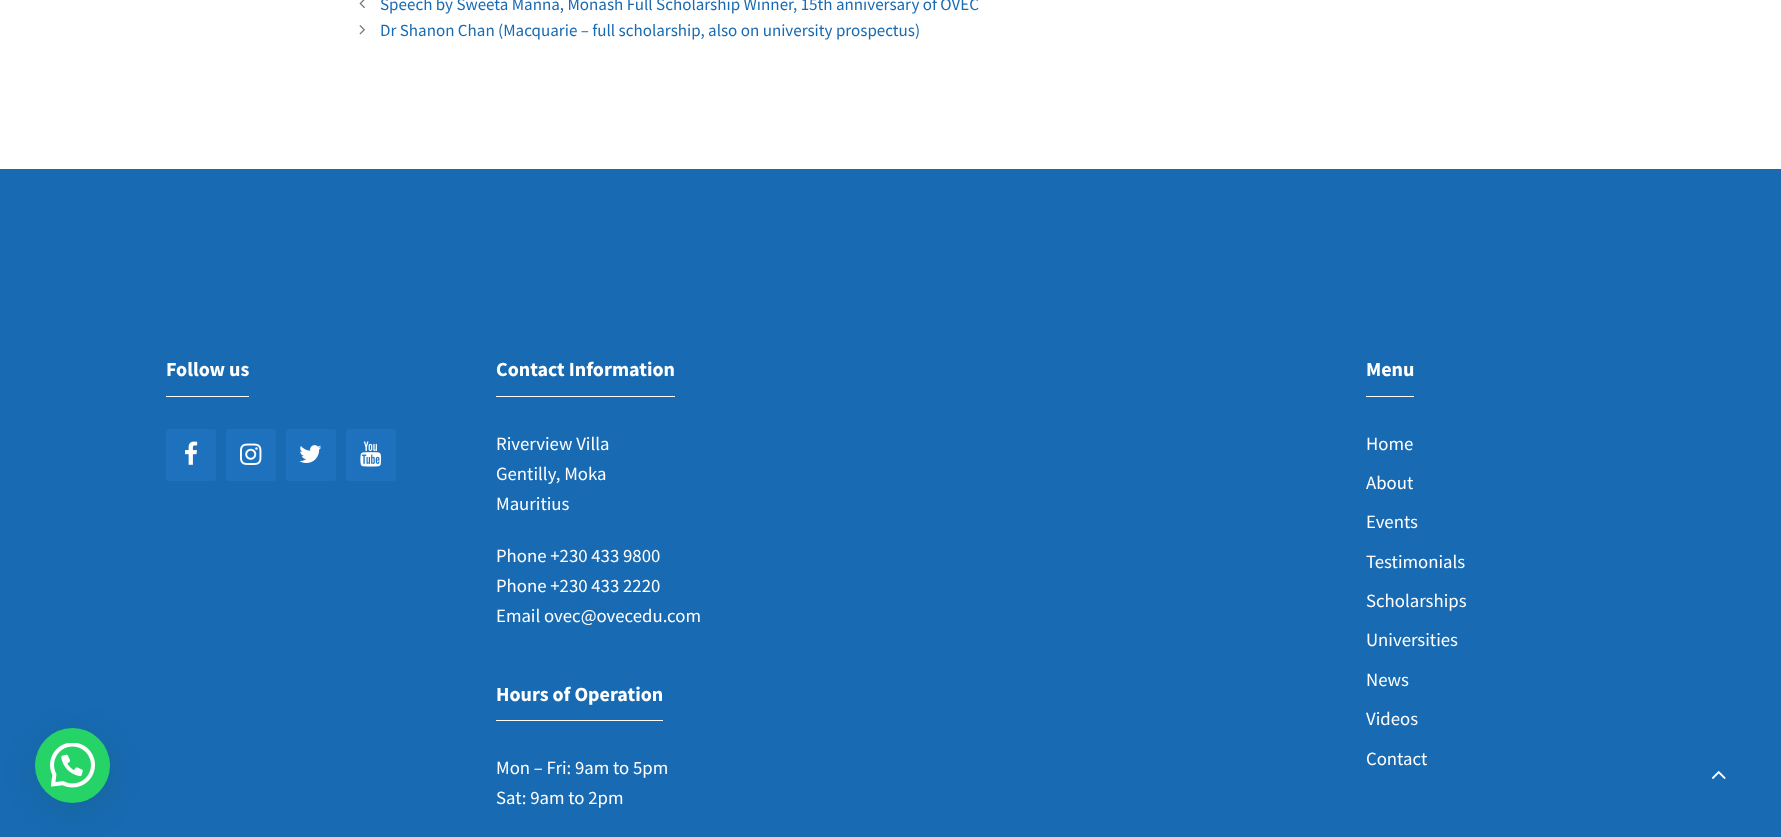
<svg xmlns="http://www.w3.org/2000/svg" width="1781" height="837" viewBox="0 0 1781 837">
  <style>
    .t1 { font: 17px Source Sans Pro; fill: #186ab2; }
    .t2 { font: bold 20px Source Sans Pro; fill: #fff; }
    .t3 { font: 18.75px Source Sans Pro; fill: #fff; }
  </style>
  <rect width="100%" height="100%" fill="#fff"/>
  <image x="359" y="0" width="6" height="9" href="images/1.png"/>
  <text x="380" y="10" class="t1">Speech by Sweeta Manna, Monash Full Scholarship Winner, 15th anniversary of OVEC</text>
  <image x="359" y="25" width="6" height="10" href="images/2.png"/>
  <text x="380" y="36" class="t1">Dr Shanon Chan (Macquarie – full scholarship, also on university prospectus)</text>
  <rect x="0" y="169" width="1781" height="668" fill="#186ab2"/>
  <rect x="36" y="735" width="75" height="75" rx="37.5" fill="#075e543d" filter="blur(15px)"/>
  <circle cx="72.5" cy="765.5" r="37.5" fill="#25d366"/>
  <image x="50" y="743" width="45" height="45" href="images/3.png"/>
  <rect x="166" y="396" width="83" height="1" fill="#fff"/>
  <text x="166" y="376" class="t2">Follow us</text>
  <rect x="166" y="429" width="50" height="52" rx="2.5" fill="#1e72bd"/>
  <image x="185" y="441" width="13" height="24" href="images/4.png"/>
  <rect x="226" y="429" width="50" height="52" rx="2.5" fill="#1e72bd"/>
  <image x="240" y="443" width="22" height="22" href="images/5.png"/>
  <rect x="286" y="429" width="50" height="52" rx="2.5" fill="#1e72bd"/>
  <image x="299" y="445" width="23" height="18" href="images/6.png"/>
  <rect x="346" y="429" width="50" height="52" rx="2.5" fill="#1e72bd"/>
  <image x="360" y="441" width="22" height="26" href="images/7.png"/>
  <rect x="496" y="396" width="179" height="1" fill="#fff"/>
  <text x="496" y="376" class="t2">Contact Information</text>
  <text x="496" y="450" class="t3">Riverview Villa</text>
  <text x="496" y="480" class="t3">Gentilly, Moka</text>
  <text x="496" y="510" class="t3">Mauritius</text>
  <text x="496" y="562" class="t3">Phone +230 433 9800</text>
  <text x="496" y="592" class="t3">Phone +230 433 2220</text>
  <text x="496" y="622" class="t3">Email ovec@ovecedu.com</text>
  <rect x="496" y="720" width="167" height="1" fill="#fff"/>
  <text x="496" y="701" class="t2">Hours of Operation</text>
  <text x="496" y="774" class="t3">Mon – Fri: 9am to 5pm</text>
  <text x="496" y="804" class="t3">Sat: 9am to 2pm</text>
  <rect x="1366" y="396" width="48" height="1" fill="#fff"/>
  <text x="1366" y="376" class="t2">Menu</text>
  <text x="1366" y="450" class="t3">Home</text>
  <text x="1366" y="489" class="t3">About</text>
  <text x="1366" y="528" class="t3">Events</text>
  <text x="1366" y="568" class="t3">Testimonials</text>
  <text x="1366" y="607" class="t3">Scholarships</text>
  <text x="1366" y="646" class="t3">Universities</text>
  <text x="1366" y="686" class="t3">News</text>
  <text x="1366" y="725" class="t3">Videos</text>
  <text x="1366" y="765" class="t3">Contact</text>
  <image x="1711" y="771" width="15" height="8" href="images/8.png"/>
</svg>
